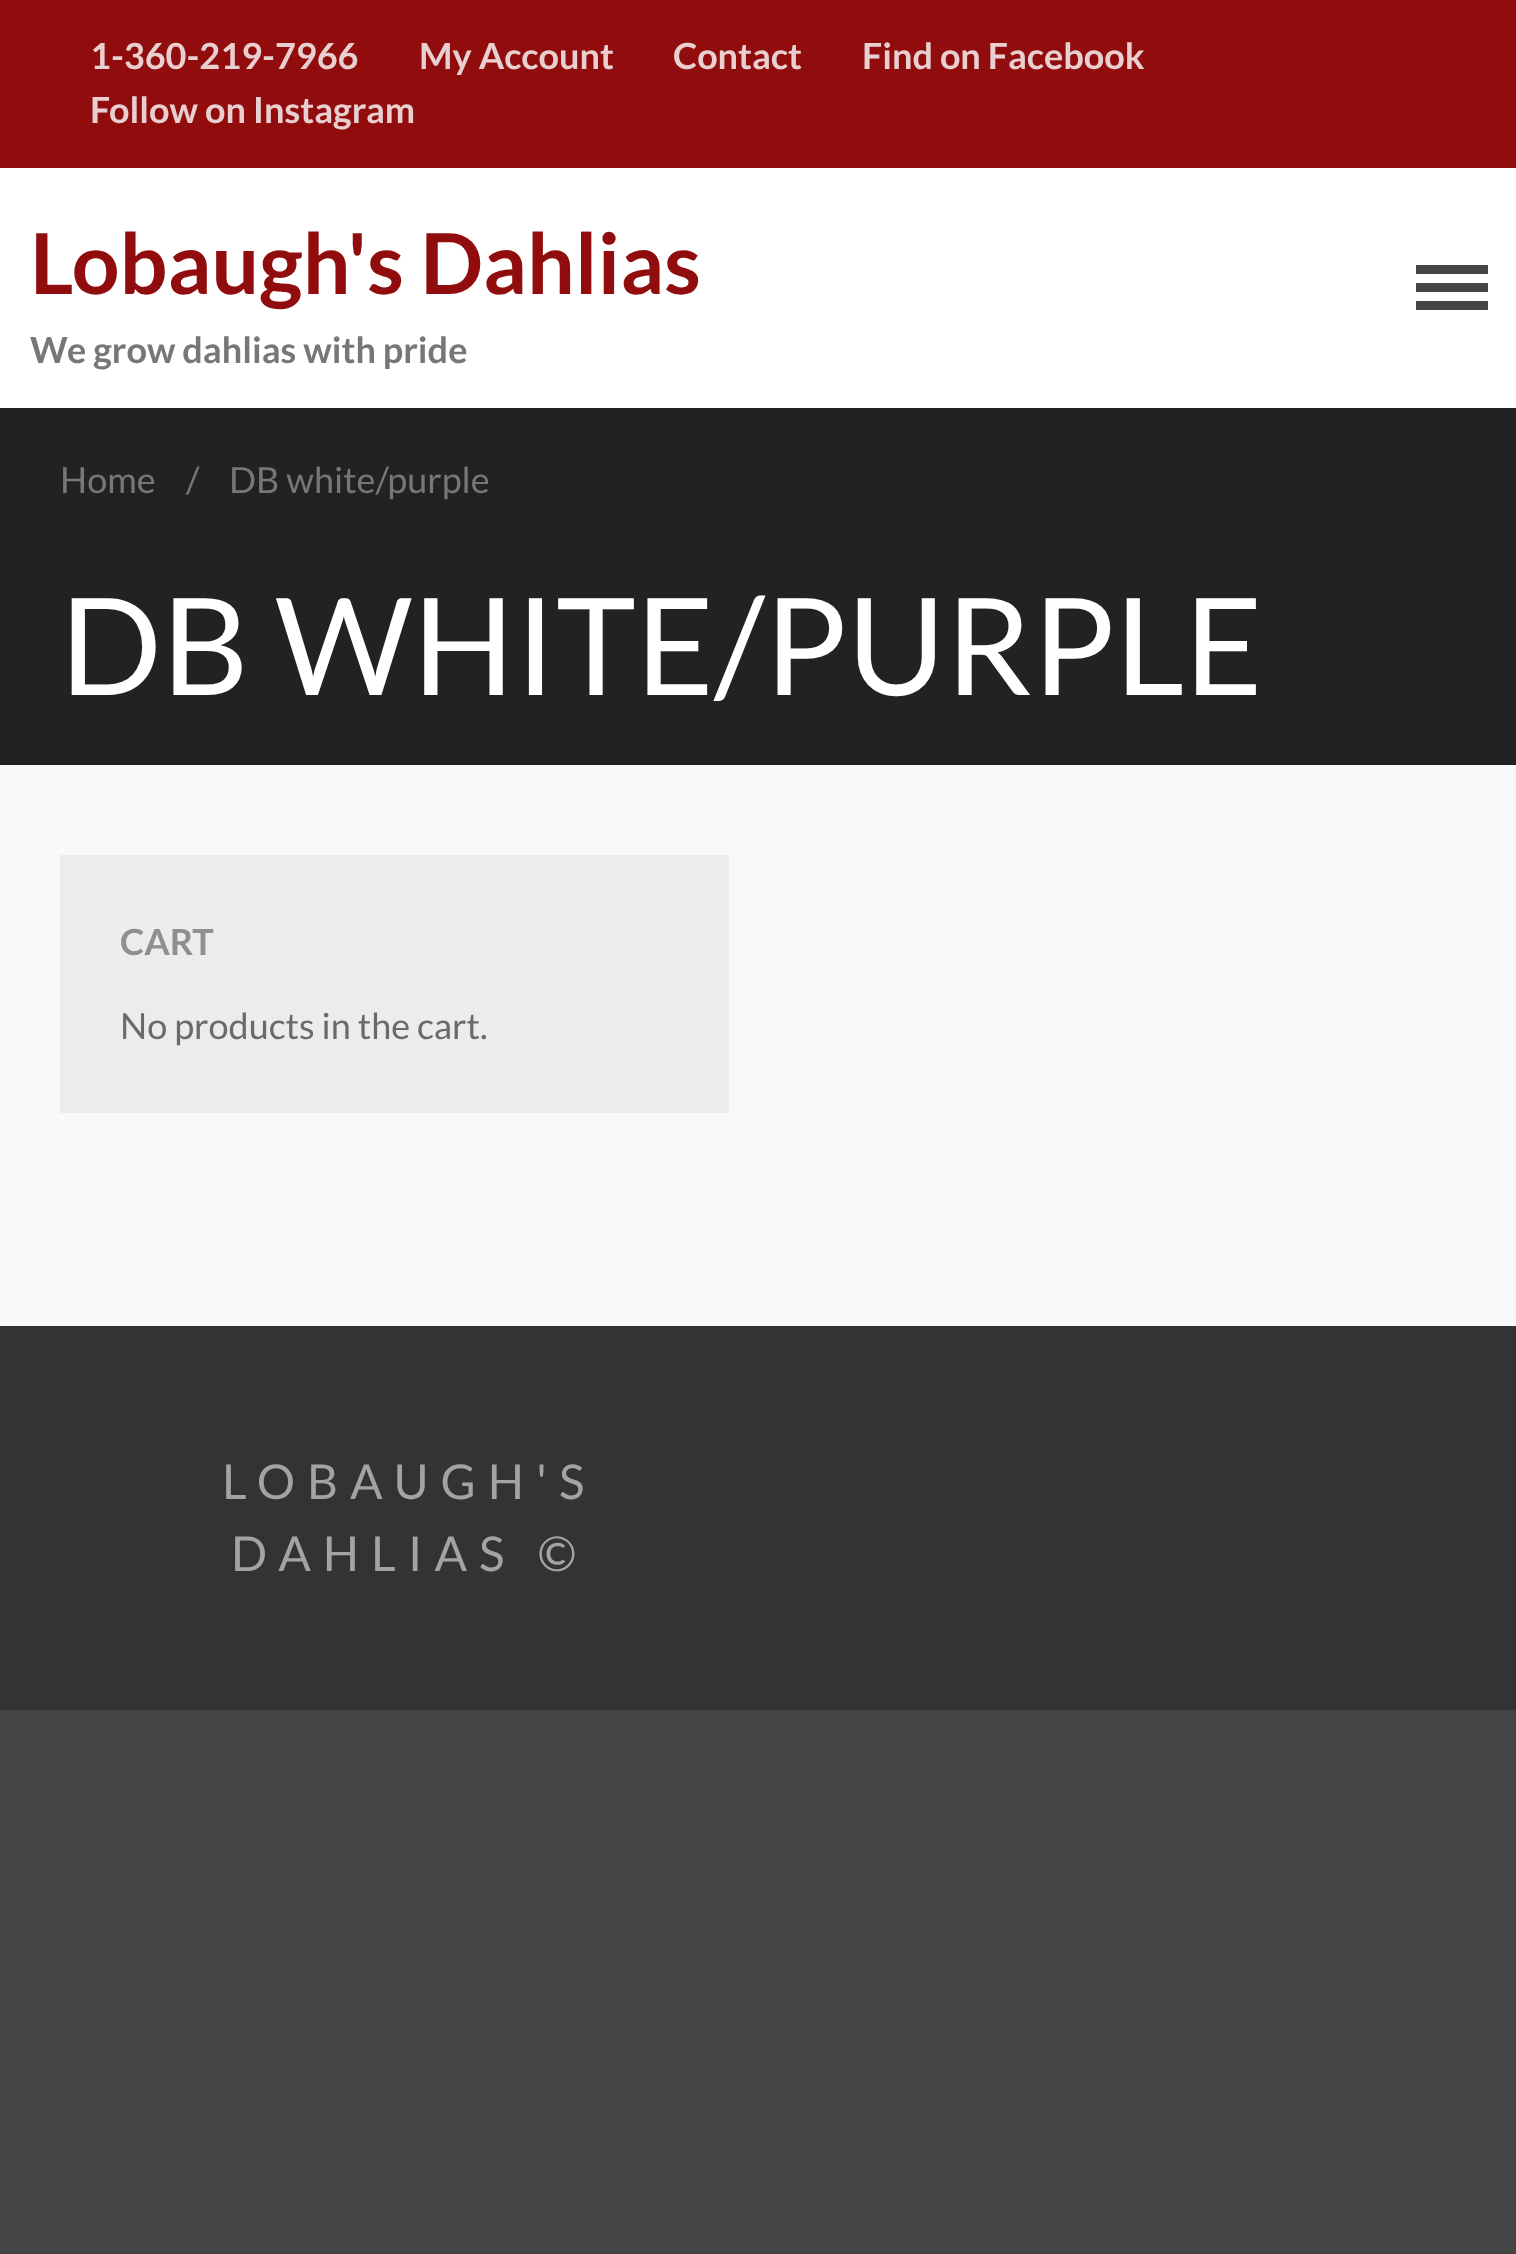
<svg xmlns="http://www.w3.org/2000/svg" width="1516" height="2254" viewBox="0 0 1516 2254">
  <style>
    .t1 { font: bold 36px Lato; fill: #e9cfcf; }
    .t2 { font: bold 84px Lato; fill: #910d0d; }
    .t3 { font: bold 36px Lato; fill: #777; }
    .t4 { font: 36px Lato; fill: #777; }
    .t5 { font: 135px Lato; fill: #fff; }
    .t6 { font: bold 36px Lato; fill: #8f8f8f; }
    .t7 { font: 36px Lato; fill: #6a6a6a; }
    .t8 { font: 48px Lato; letter-spacing: 12px; fill: #a3a3a3; }
  </style>
  <rect width="100%" height="100%" fill="#454545"/>
  <rect x="0" y="168" width="1516" height="240" fill="#fff"/>
  <rect x="0" y="0" width="1516" height="168" fill="#910d0d"/>
  <text x="90" y="69" class="t1">1-360-219-7966</text>
  <text x="419" y="69" class="t1">My Account</text>
  <text x="673" y="69" class="t1">Contact</text>
  <text x="862" y="69" class="t1">Find on Facebook</text>
  <text x="90" y="123" class="t1">Follow on Instagram</text>
  <text x="30" y="294" class="t2">Lobaugh's Dahlias</text>
  <text x="30" y="363" class="t3">We grow dahlias with pride</text>
  <path d="M1416 265V274H1488V265ZM1416 283V292H1488V283ZM1416 301V310H1488V301Z" fill="#454545"/>
  <rect x="0" y="765" width="1516" height="561" fill="#f9f9f9"/>
  <rect x="0" y="408" width="1516" height="357" fill="#222"/>
  <text x="60" y="493" class="t4">Home</text>
  <text x="186" y="493" class="t4">/</text>
  <text x="229" y="493" class="t4">DB white/purple</text>
  <text x="60" y="695" class="t5">DB WHITE/PURPLE</text>
  <rect x="60" y="855" width="669" height="258" fill="#ececec"/>
  <text x="120" y="955" class="t6">CART</text>
  <text x="120" y="1039" class="t7">No products in the cart.</text>
  <rect x="0" y="1326" width="1516" height="384" fill="#333"/>
  <text x="222" y="1499" class="t8">LOBAUGH'S</text>
  <text x="231" y="1571" class="t8">DAHLIAS ©</text>
</svg>
